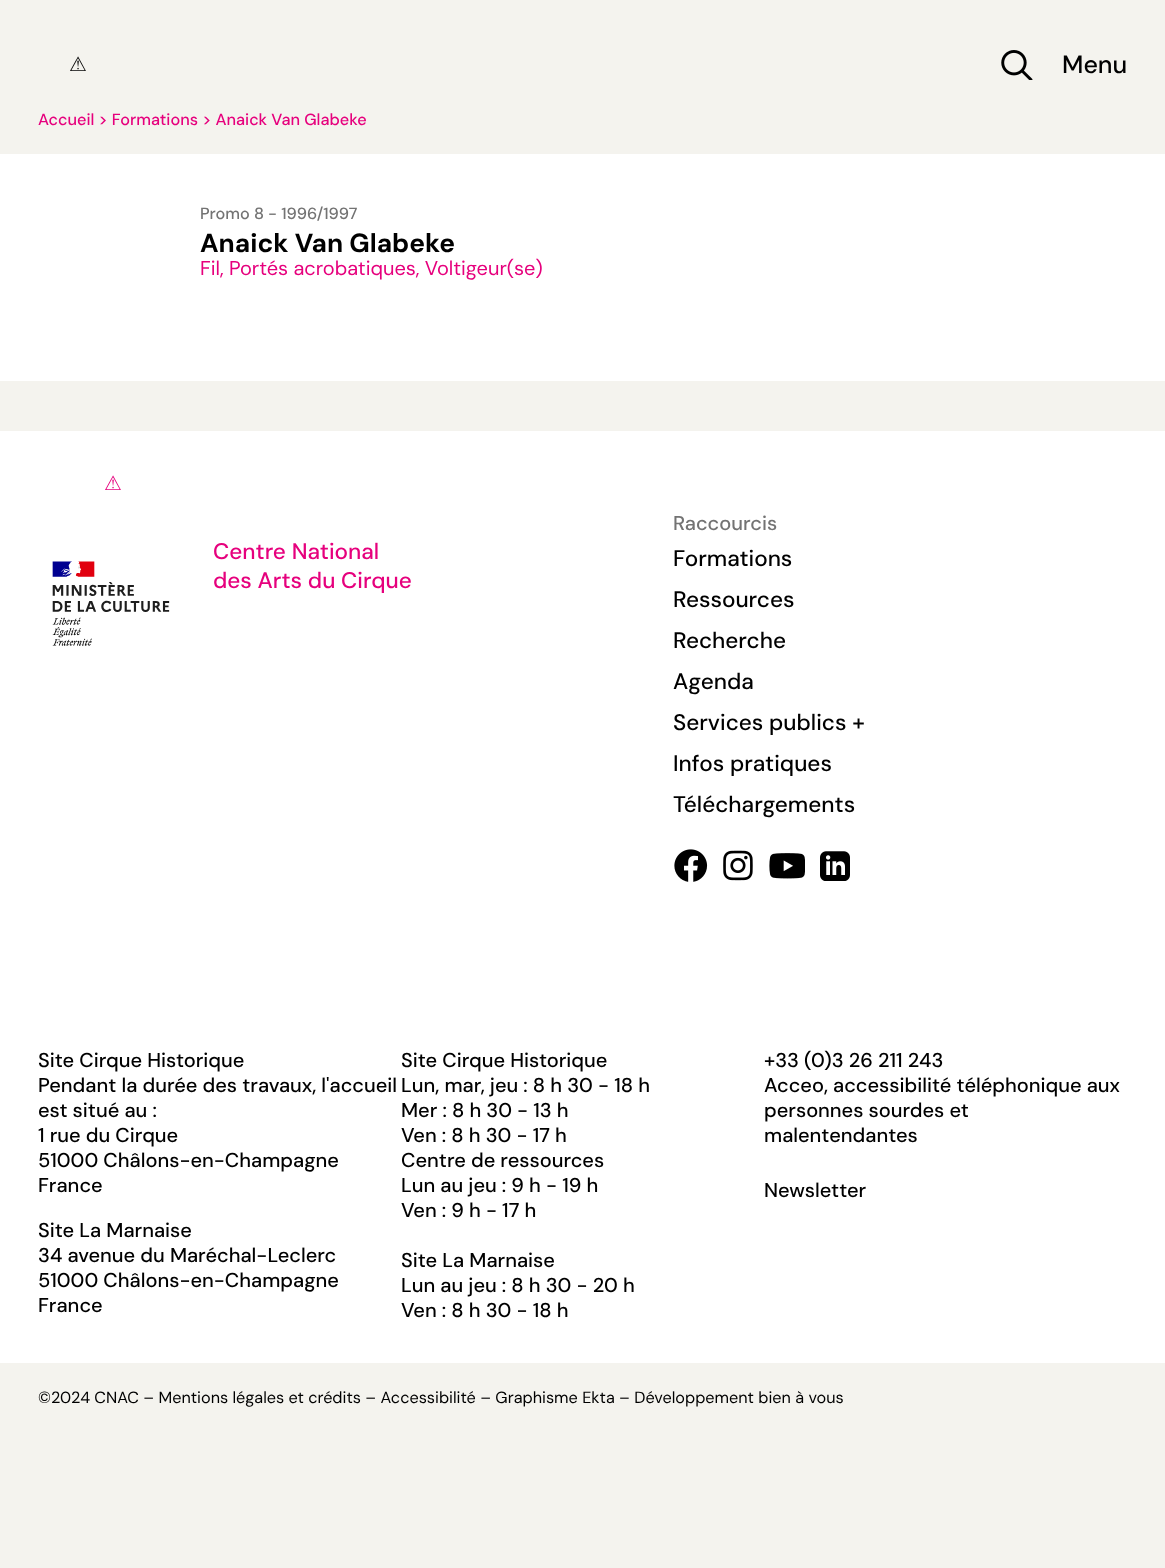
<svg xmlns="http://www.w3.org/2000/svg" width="1165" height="1568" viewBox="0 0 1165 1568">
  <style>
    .t1 { font: 20px DejaVu Sans; fill: #000; }
    .t2 { font: 500 25px DM Sans; fill: #000; }
    .t3 { font: 500 16.25px DM Sans; fill: #e6007d; }
    .t4 { font: 500 16.25px DM Sans; fill: #737373; }
    .t5 { font: bold 26.25px DM Sans; fill: #000; }
    .t6 { font: 20px DM Sans; fill: #e6007d; }
    .t7 { font: 20px DejaVu Sans; fill: #e6007d; }
    .t8 { font: 500 22.5px DM Sans; fill: #e6007d; }
    .t9 { font: 500 20px DM Sans; fill: #737373; }
    .t10 { font: 500 22.5px DM Sans; fill: #000; }
    .t11 { font: 500 20px DM Sans; fill: #000; }
    .t12 { font: 16.25px DM Sans; fill: #000; }
  </style>
  <rect width="100%" height="100%" fill="#f4f3ee"/>
  <text x="69" y="71" class="t1">⚠</text>
  <image x="1001" y="50" width="32" height="30" href="images/1.png"/>
  <text x="1062" y="73" class="t2">Menu</text>
  <text x="38" y="125" class="t3">Accueil &gt; Formations &gt; Anaick Van Glabeke</text>
  <rect x="0" y="154" width="1165" height="227" fill="#fff"/>
  <text x="200" y="219" class="t4">Promo 8 - 1996/1997</text>
  <text x="200" y="252" class="t5">Anaick Van Glabeke</text>
  <text x="200" y="275" class="t6">Fil, Portés acrobatiques, Voltigeur(se)</text>
  <rect x="0" y="431" width="1165" height="932" fill="#fff"/>
  <text x="104" y="490" class="t7">⚠</text>
  <image x="52" y="561" width="118" height="85" href="images/2.png"/>
  <text x="213" y="559" class="t8">Centre National</text>
  <text x="213" y="588" class="t8">des Arts du Cirque</text>
  <text x="673" y="530" class="t9">Raccourcis</text>
  <text x="673" y="566" class="t10">Formations</text>
  <text x="673" y="607" class="t10">Ressources</text>
  <text x="673" y="648" class="t10">Recherche</text>
  <text x="673" y="689" class="t10">Agenda</text>
  <text x="673" y="730" class="t10">Services publics +</text>
  <text x="673" y="771" class="t10">Infos pratiques</text>
  <text x="673" y="812" class="t10">Téléchargements</text>
  <image x="674" y="849" width="34" height="33" href="images/3.png"/>
  <image x="723" y="850" width="30" height="31" href="images/4.png"/>
  <image x="769" y="853" width="36" height="26" href="images/5.png"/>
  <image x="820" y="851" width="30" height="30" href="images/6.png"/>
  <text x="38" y="1067" class="t11">Site Cirque Historique</text>
  <text x="38" y="1092" class="t11">Pendant la durée des travaux, l'accueil</text>
  <text x="38" y="1117" class="t11">est situé au :</text>
  <text x="38" y="1142" class="t11">1 rue du Cirque</text>
  <text x="38" y="1167" class="t11">51000 Châlons-en-Champagne</text>
  <text x="38" y="1192" class="t11">France</text>
  <text x="38" y="1237" class="t11">Site La Marnaise</text>
  <text x="38" y="1262" class="t11">34 avenue du Maréchal-Leclerc</text>
  <text x="38" y="1287" class="t11">51000 Châlons-en-Champagne</text>
  <text x="38" y="1312" class="t11">France</text>
  <text x="401" y="1067" class="t11">Site Cirque Historique</text>
  <text x="401" y="1092" class="t11">Lun, mar, jeu : 8 h 30 - 18 h</text>
  <text x="401" y="1117" class="t11">Mer : 8 h 30 - 13 h</text>
  <text x="401" y="1142" class="t11">Ven : 8 h 30 - 17 h</text>
  <text x="401" y="1167" class="t11">Centre de ressources</text>
  <text x="401" y="1192" class="t11">Lun au jeu : 9 h - 19 h</text>
  <text x="401" y="1217" class="t11">Ven : 9 h - 17 h</text>
  <text x="401" y="1267" class="t11">Site La Marnaise</text>
  <text x="401" y="1292" class="t11">Lun au jeu : 8 h 30 - 20 h</text>
  <text x="401" y="1317" class="t11">Ven : 8 h 30 - 18 h</text>
  <text x="764" y="1067" class="t11">+33 (0)3 26 211 243</text>
  <text x="764" y="1092" class="t11">Acceo, accessibilité téléphonique aux</text>
  <text x="764" y="1117" class="t11">personnes sourdes et</text>
  <text x="764" y="1142" class="t11">malentendantes</text>
  <text x="764" y="1197" class="t11">Newsletter</text>
  <text x="38" y="1403" class="t12">©2024 CNAC – Mentions légales et crédits – Accessibilité – Graphisme Ekta – Développement bien à vous</text>
</svg>
